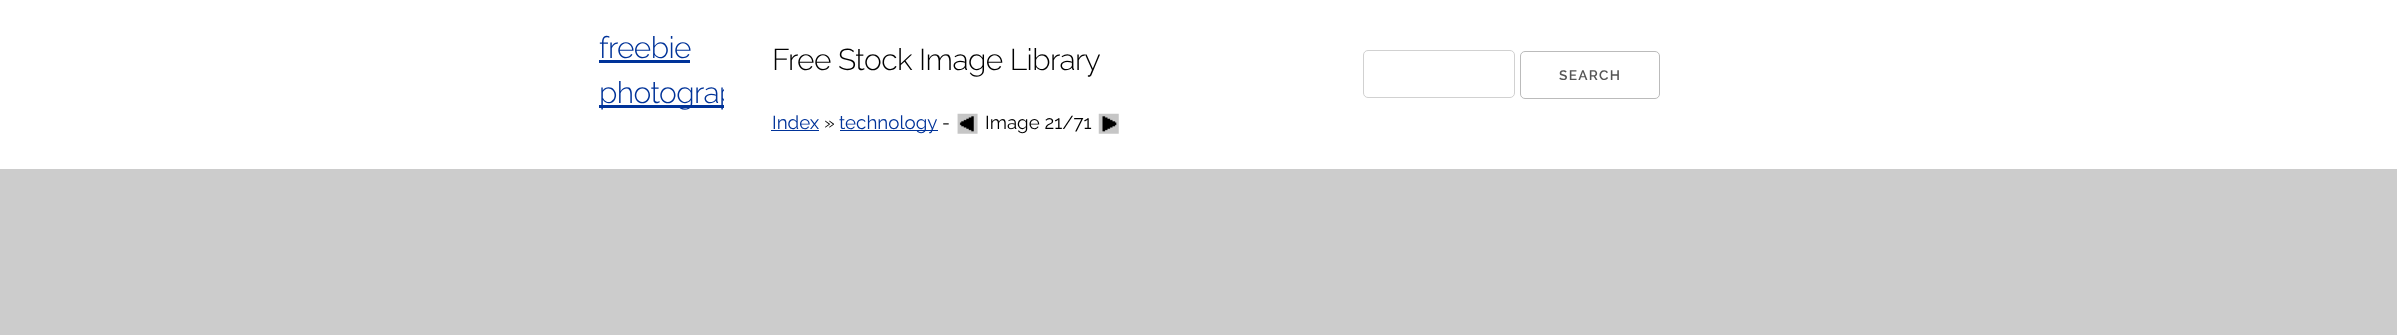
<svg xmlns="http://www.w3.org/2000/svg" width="2397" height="335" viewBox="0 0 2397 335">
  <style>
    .t1 { font: 300 30px Raleway; letter-spacing: -0.6px; fill: #039; }
    .t2 { font: 300 30px Raleway; letter-spacing: -0.6px; fill: #000; }
    .t3 { font: 18.75px Raleway; fill: #039; }
    .t4 { font: 18.75px Raleway; fill: #000; }
    .t5 { font: 600 13.75px Raleway; letter-spacing: 1.25px; fill: #555; }
  </style>
  <defs>
    <clipPath id="clip1"><rect x="599" y="25" width="125" height="115"/></clipPath>
  </defs>
  <rect width="100%" height="100%" fill="#ccc"/>
  <rect x="0" y="0" width="2397" height="169" fill="#fff"/>
  <text x="599" y="58" class="t1">freebie</text>
  <rect x="599" y="60" width="91" height="3" fill="#039"/>
  <rect x="599" y="105" width="125" height="3" fill="#039"/>
  <g clip-path="url(#clip1)">
    <text x="599" y="103" class="t1">photograp</text>
  </g>
  <text x="772" y="70" class="t2">Free Stock Image Library</text>
  <text x="772" y="129" class="t3">Index</text>
  <rect x="771" y="130" width="48" height="1" fill="#039"/>
  <text x="824" y="129" class="t4">»</text>
  <rect x="840" y="130" width="98" height="1" fill="#039"/>
  <text x="839" y="129" class="t3">technology</text>
  <text x="942" y="129" class="t4">-</text>
  <image x="957" y="113" width="21" height="21" href="images/1.png"/>
  <text x="985" y="129" class="t4">Image 21/71</text>
  <image x="1098" y="113" width="21" height="21" href="images/2.png"/>
  <rect x="1363.5" y="50.5" width="151" height="47" rx="4.5" fill="none" stroke="#d1d1d1"/>
  <rect x="1520.5" y="51.5" width="139" height="47" rx="4.5" fill="none" stroke="#bbb"/>
  <text x="1559" y="80" class="t5">SEARCH</text>
</svg>
